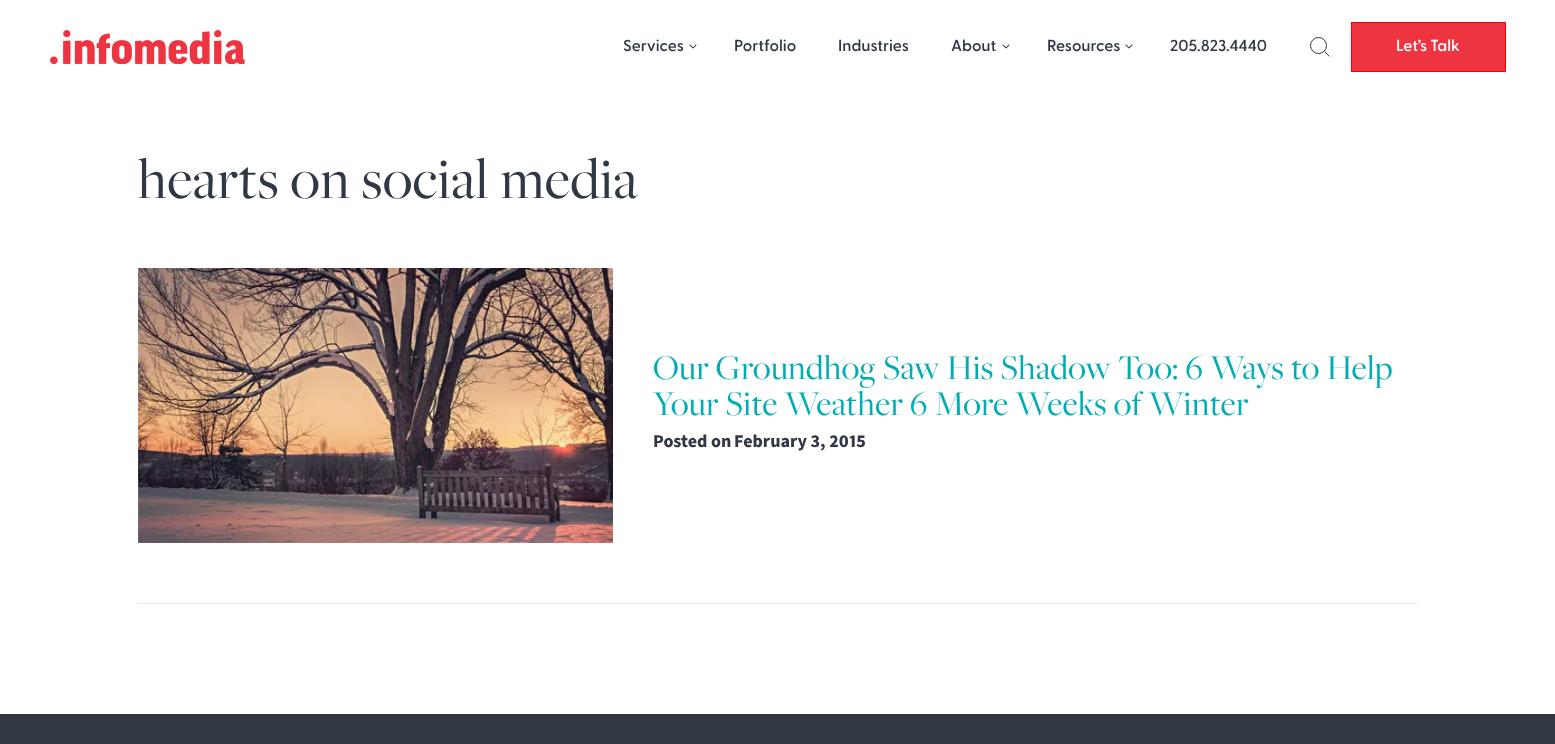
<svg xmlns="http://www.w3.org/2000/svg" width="1555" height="744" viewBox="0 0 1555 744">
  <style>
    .t1 { font: 600 16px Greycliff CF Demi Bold; fill: #313843; }
    .t2 { font: 600 16px Greycliff CF Demi Bold; fill: #fff; }
    .t3 { font: 60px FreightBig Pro; letter-spacing: 0.6px; fill: #313843; }
    .t4 { font: 36px FreightBig Pro; letter-spacing: 0.35px; fill: #00adb5; }
    .t5 { font: bold 18px Source Sans Pro; fill: #313843; }
    .t6 { font: bold 18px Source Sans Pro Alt; fill: #313843; }
  </style>
  <rect width="100%" height="100%" fill="#fff"/>
  <image x="50" y="30" width="195" height="34" href="images/1.png"/>
  <text x="623" y="51" class="t1">Services</text>
  <image x="689" y="44" width="8" height="5" href="images/2.png"/>
  <text x="734" y="51" class="t1">Portfolio</text>
  <text x="838" y="51" class="t1">Industries</text>
  <text x="951" y="51" class="t1">About</text>
  <image x="1002" y="44" width="8" height="5" href="images/2.png"/>
  <text x="1047" y="51" class="t1">Resources</text>
  <image x="1125" y="44" width="8" height="5" href="images/2.png"/>
  <text x="1170" y="51" class="t1">205.823.4440</text>
  <circle cx="1318.5" cy="45.5" r="8" fill="none" stroke="#313843"/>
  <path d="M1324.5 51.5L1329.5 56.5" fill="none" stroke="#313843"/>
  <rect x="1352" y="23" width="153" height="48" fill="#ee3440"/>
  <rect x="1351.5" y="22.5" width="154" height="49" fill="none" stroke="#f00"/>
  <text x="1396" y="51" class="t2">Let’s Talk</text>
  <text x="138" y="198" class="t3">hearts on social media</text>
  <rect x="138" y="603" width="1280" height="1" fill="#ededed"/>
  <image x="138" y="268" width="475" height="275" href="images/3.png"/>
  <text x="653" y="379" class="t4">Our Groundhog Saw His Shadow Too: 6 Ways to Help</text>
  <text x="653" y="415" class="t4">Your Site Weather 6 More Weeks of Winter</text>
  <text x="653" y="447" class="t5">Posted on</text>
  <text x="734" y="447" class="t6">February 3, 2015</text>
  <rect x="0" y="714" width="1555" height="30" fill="#313843"/>
</svg>
